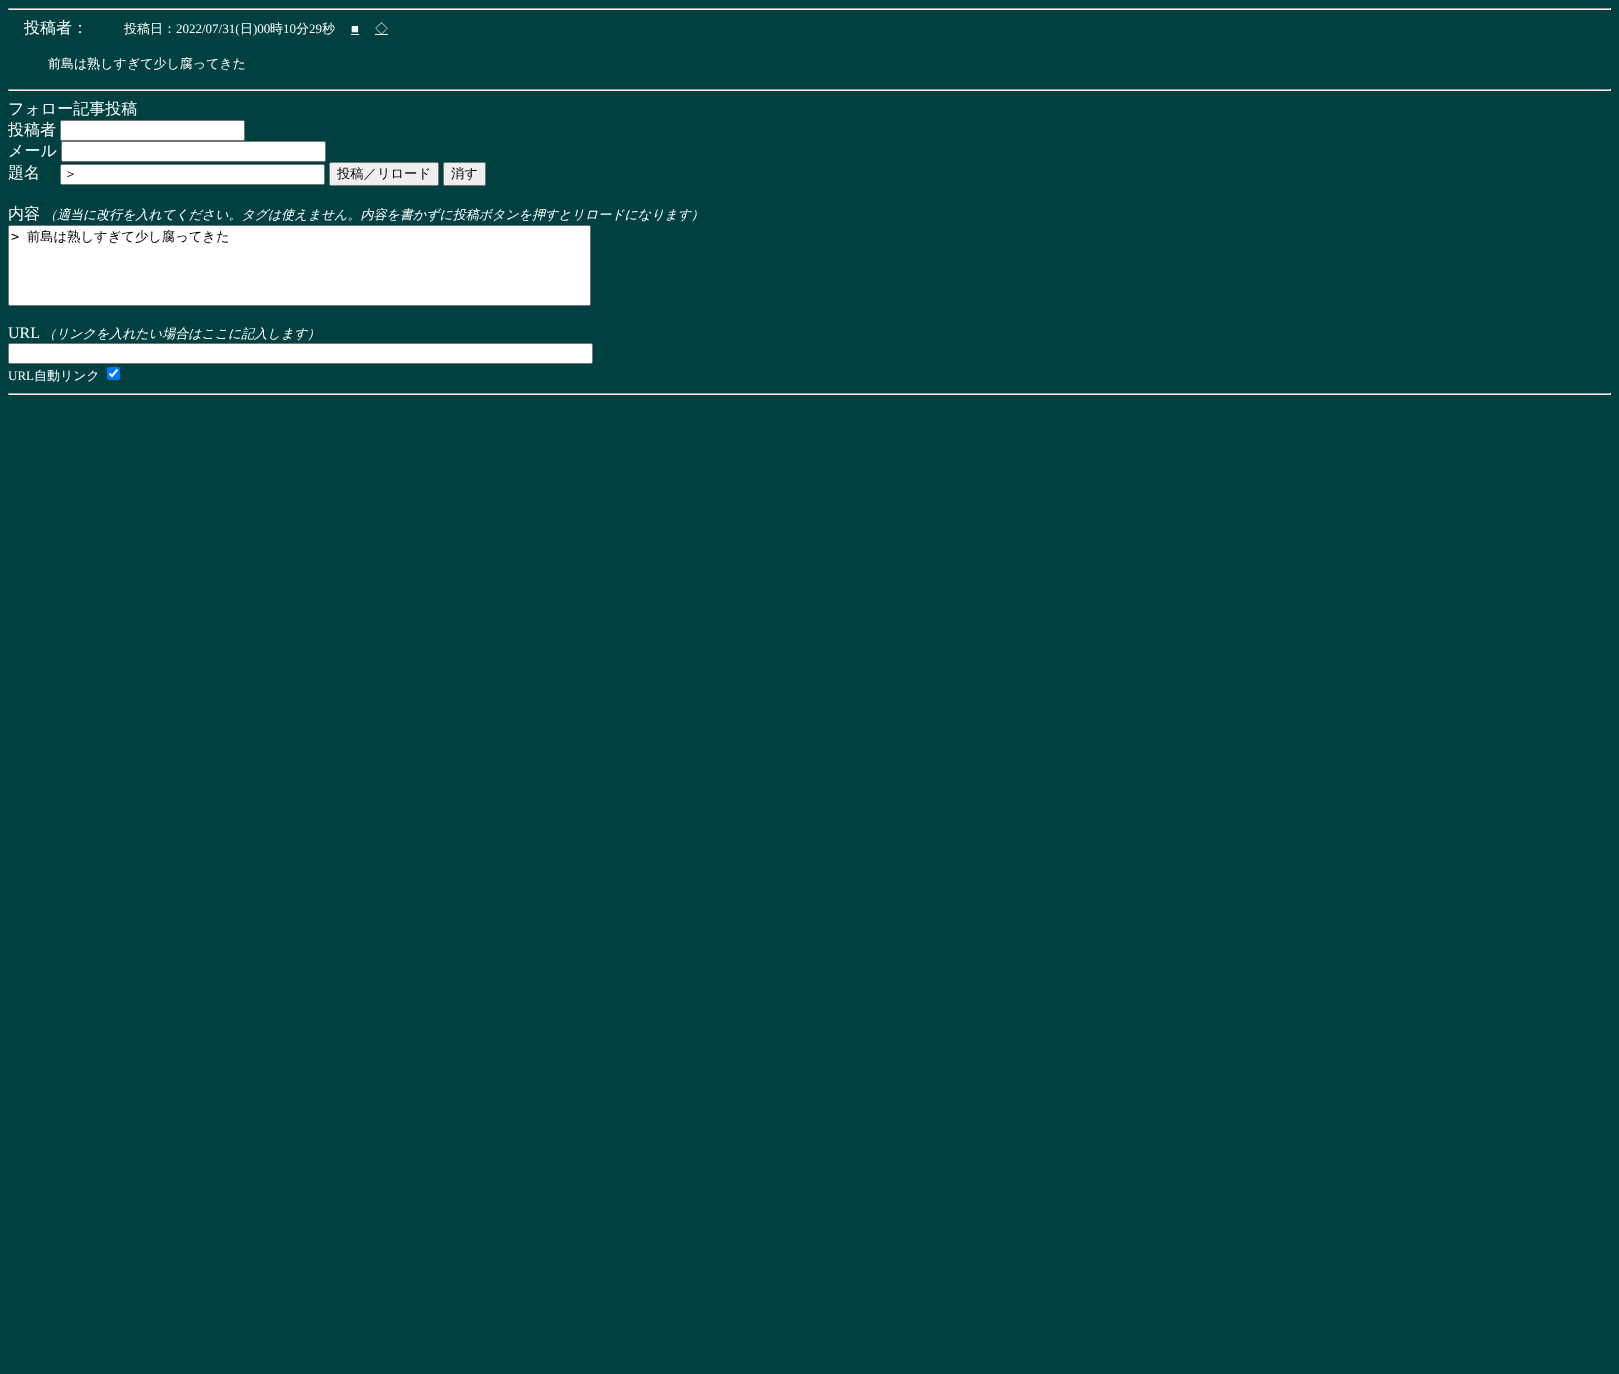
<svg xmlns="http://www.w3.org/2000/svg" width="1619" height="1374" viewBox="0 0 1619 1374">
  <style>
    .t1 { font: 500 16px WenQuanYi Zen Hei; fill: #fff; }
    .t2 { font: 500 13px WenQuanYi Zen Hei; fill: #fff; }
    .t3 { font: 13px Liberation Serif; fill: #fff; }
    .t4 { font: 13px Liberation Serif; fill: #efe; }
    .t5 { font: 500 13px WenQuanYi Zen Hei; fill: #efe; }
    .t6 { font: 500 13.3px WenQuanYi Zen Hei; fill: #000; }
    .t7 { font: italic 500 13px WenQuanYi Zen Hei; fill: #fff; }
    .t8 { font: 13.3px DejaVu Sans Mono; fill: #000; }
    .t9 { font: 16px Liberation Serif; fill: #fff; }
  </style>
  <rect width="100%" height="100%" fill="#004040"/>
  <rect x="8" y="8" width="1603" height="1" fill="#9f9f9f"/>
  <rect x="1610" y="8" width="1" height="2" fill="#eee"/>
  <rect x="8" y="9" width="1603" height="1" fill="#eee"/>
  <rect x="8" y="8" width="1" height="2" fill="#9f9f9f"/>
  <text x="24" y="33" class="t1">投稿者：</text>
  <text x="124" y="33" class="t2">投稿日：</text>
  <text x="176" y="33" class="t3">2022/07/31(</text>
  <text x="240" y="33" class="t2">日</text>
  <text x="253" y="33" class="t3">)00</text>
  <text x="270" y="33" class="t2">時</text>
  <text x="283" y="33" class="t3">10</text>
  <text x="296" y="33" class="t2">分</text>
  <text x="309" y="33" class="t3">29</text>
  <text x="322" y="33" class="t2">秒</text>
  <text x="351" y="33" class="t4">■</text>
  <rect x="351" y="34" width="8" height="1" fill="#efe"/>
  <rect x="375" y="34" width="13" height="1" fill="#efe"/>
  <text x="375" y="33" class="t5">◇</text>
  <text x="48" y="68" class="t2">前島は熟しすぎて少し腐ってきた</text>
  <rect x="8" y="89" width="1603" height="1" fill="#9f9f9f"/>
  <rect x="1610" y="89" width="1" height="2" fill="#eee"/>
  <rect x="8" y="90" width="1603" height="1" fill="#eee"/>
  <rect x="8" y="89" width="1" height="2" fill="#9f9f9f"/>
  <text x="8" y="114" class="t1">フォロー記事投稿</text>
  <text x="8" y="135" class="t1">投稿者</text>
  <rect x="60.5" y="120.5" width="184" height="20" rx="1.5" fill="#fff" stroke="#767676"/>
  <text x="8" y="156" class="t1">メール</text>
  <rect x="61.5" y="141.5" width="264" height="20" rx="1.5" fill="#fff" stroke="#767676"/>
  <text x="8" y="178" class="t1">題名</text>
  <rect x="60.5" y="164.5" width="264" height="20" rx="1.5" fill="#fff" stroke="#767676"/>
  <text x="64" y="178" class="t6">＞</text>
  <rect x="329.5" y="162.5" width="109" height="23" rx="1.5" fill="#efefef" stroke="#767676"/>
  <text x="337" y="178" class="t6">投稿／リロード</text>
  <rect x="443.5" y="162.5" width="42" height="23" rx="1.5" fill="#efefef" stroke="#767676"/>
  <text x="451" y="178" class="t6">消す</text>
  <text x="8" y="219" class="t1">内容</text>
  <text x="44" y="219" class="t7">（適当に改行を入れてください。タグは使えません。内容を書かずに投稿ボタンを押すとリロードになります）</text>
  <rect x="8.5" y="225.5" width="582" height="80" rx="1.5" fill="#fff" stroke="#767676"/>
  <text x="11" y="241" class="t8">&gt;</text>
  <text x="27" y="241" class="t6">前島は熟しすぎて少し腐ってきた</text>
  <text x="8" y="338" class="t9">URL</text>
  <text x="43" y="338" class="t7">（リンクを入れたい場合はここに記入します）</text>
  <rect x="8.5" y="343.5" width="584" height="20" rx="1.5" fill="#fff" stroke="#767676"/>
  <text x="8" y="380" class="t3">URL</text>
  <text x="34" y="380" class="t2">自動リンク</text>
  <rect x="107" y="367" width="13" height="13" rx="2" fill="#0075ff"/>
  <path d="M109.5 373.5L112 376L117.5 369.5" fill="none" stroke="#fff" stroke-width="2.1"/>
  <rect x="8" y="393" width="1603" height="1" fill="#9f9f9f"/>
  <rect x="1610" y="393" width="1" height="2" fill="#eee"/>
  <rect x="8" y="394" width="1603" height="1" fill="#eee"/>
  <rect x="8" y="393" width="1" height="2" fill="#9f9f9f"/>
</svg>
